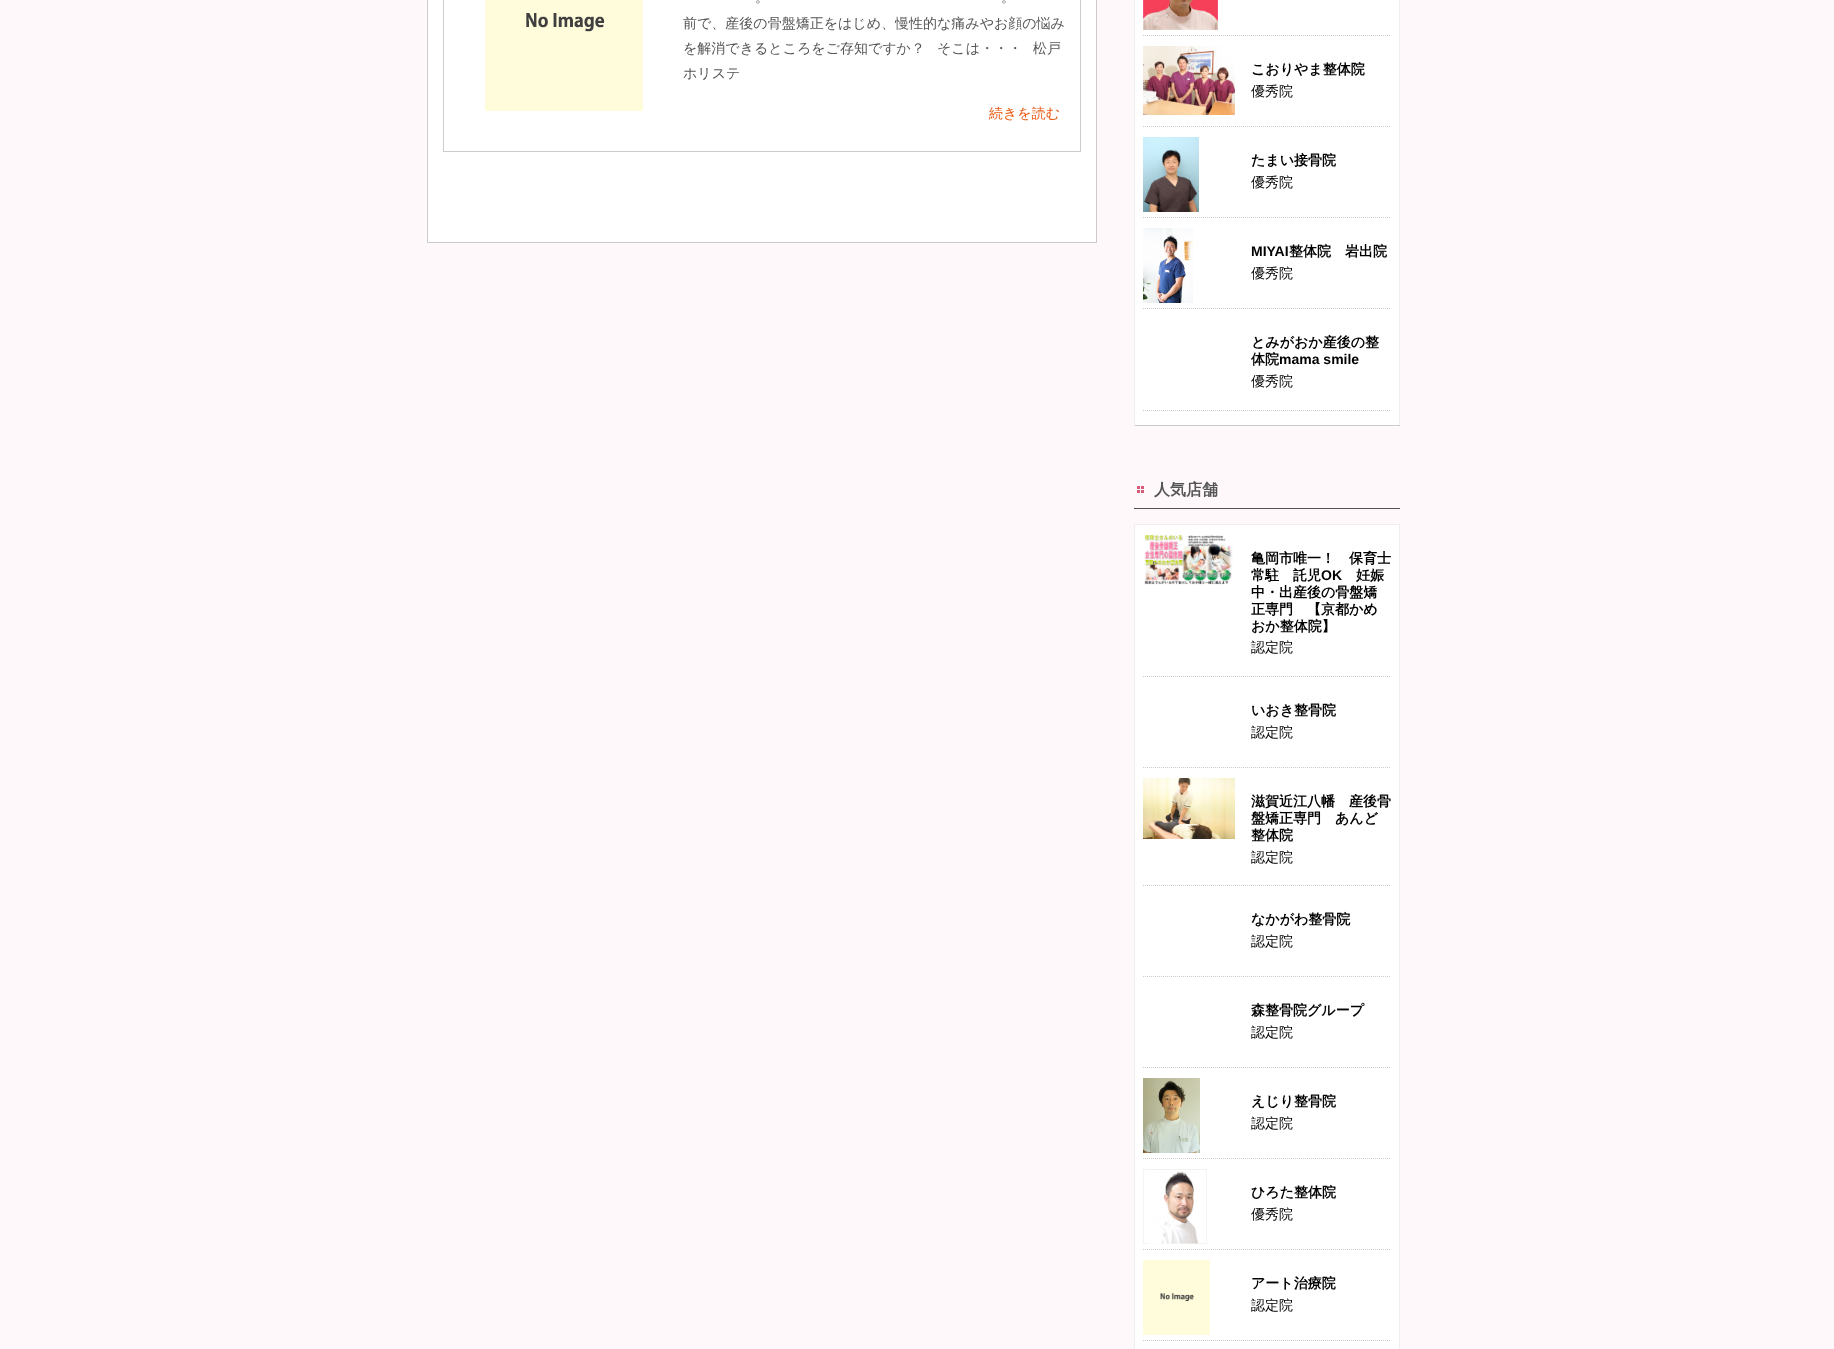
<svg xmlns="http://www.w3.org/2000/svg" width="1834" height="1349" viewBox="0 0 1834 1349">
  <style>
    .t1 { font: 500 14px WenQuanYi Zen Hei; fill: #555; }
    .t2 { font: 500 14px WenQuanYi Zen Hei; fill: #ea5710; }
    .t3 { font: bold 14px WenQuanYi Zen Hei; fill: #000; }
    .t4 { font: 500 14px WenQuanYi Zen Hei; fill: #000; }
    .t5 { font: bold 14px Liberation Sans; fill: #000; }
    .t6 { font: bold 16px WenQuanYi Zen Hei; fill: #555; }
  </style>
  <rect width="100%" height="100%" fill="#fef8fa"/>
  <rect x="427.5" y="-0.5" width="669" height="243" fill="#fff" stroke="#ccc"/>
  <rect x="443.5" y="-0.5" width="637" height="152" fill="none" stroke="#ccc"/>
  <image x="485" y="0" width="158" height="111" href="images/1.png"/>
  <text x="755" y="2" class="t1">。</text>
  <text x="1001" y="2" class="t1">。</text>
  <text x="683" y="28" class="t1">前で、産後の骨盤矯正をはじめ、慢性的な痛みやお顔の悩み</text>
  <text x="683" y="53" class="t1">を解消できるところをご存知ですか？</text>
  <text x="937" y="53" class="t1">そこは・・・</text>
  <text x="1033" y="53" class="t1">松戸</text>
  <text x="683" y="78" class="t1">ホリステ</text>
  <text x="989" y="118" class="t2">続きを読む</text>
  <rect x="1135" y="0" width="264" height="425" fill="#fff"/>
  <rect x="1399" y="0" width="1" height="426" fill="#eee"/>
  <rect x="1134" y="425" width="266" height="1" fill="#ccc"/>
  <rect x="1134" y="0" width="1" height="426" fill="#eee"/>
  <path d="M1143 35.5H1391" fill="none" stroke="#ccc" stroke-dasharray="1 1"/>
  <image x="1143" y="0" width="75" height="30" href="images/2.png"/>
  <path d="M1143 126.5H1391" fill="none" stroke="#ccc" stroke-dasharray="1 1"/>
  <image x="1143" y="46" width="92" height="69" href="images/3.png"/>
  <text x="1251" y="74" class="t3">こおりやま整体院</text>
  <text x="1251" y="96" class="t4">優秀院</text>
  <path d="M1143 217.5H1391" fill="none" stroke="#ccc" stroke-dasharray="1 1"/>
  <image x="1143" y="137" width="56" height="75" href="images/4.png"/>
  <text x="1251" y="165" class="t3">たまい接骨院</text>
  <text x="1251" y="187" class="t4">優秀院</text>
  <path d="M1143 308.5H1391" fill="none" stroke="#ccc" stroke-dasharray="1 1"/>
  <image x="1143" y="228" width="50" height="75" href="images/5.png"/>
  <text x="1251" y="256" class="t5">MIYAI</text>
  <text x="1289" y="256" class="t3">整体院　岩出院</text>
  <text x="1251" y="278" class="t4">優秀院</text>
  <path d="M1143 410.5H1391" fill="none" stroke="#ccc" stroke-dasharray="1 1"/>
  <text x="1251" y="347" class="t3">とみがおか産後の整</text>
  <text x="1251" y="364" class="t3">体院</text>
  <text x="1279" y="364" class="t5">mama smile</text>
  <text x="1251" y="386" class="t4">優秀院</text>
  <image x="1137" y="486" width="7" height="7" href="images/6.png"/>
  <rect x="1134" y="508" width="266" height="1" fill="#555"/>
  <text x="1154" y="495" class="t6">人気店舗</text>
  <rect x="1135" y="525" width="264" height="824" fill="#fff"/>
  <rect x="1134" y="524" width="266" height="1" fill="#eee"/>
  <rect x="1399" y="524" width="1" height="825" fill="#eee"/>
  <rect x="1134" y="524" width="1" height="825" fill="#eee"/>
  <path d="M1143 676.5H1391" fill="none" stroke="#ccc" stroke-dasharray="1 1"/>
  <image x="1144" y="535" width="89" height="50" href="images/7.png"/>
  <text x="1251" y="563" class="t3">亀岡市唯一！　保育士</text>
  <text x="1251" y="580" class="t3">常駐　託児</text>
  <text x="1321" y="580" class="t5">OK</text>
  <text x="1356" y="580" class="t3">妊娠</text>
  <text x="1251" y="597" class="t3">中・出産後の骨盤矯</text>
  <text x="1251" y="614" class="t3">正専門　【京都かめ</text>
  <text x="1251" y="631" class="t3">おか整体院】</text>
  <text x="1251" y="652" class="t4">認定院</text>
  <path d="M1143 767.5H1391" fill="none" stroke="#ccc" stroke-dasharray="1 1"/>
  <text x="1251" y="715" class="t3">いおき整骨院</text>
  <text x="1251" y="737" class="t4">認定院</text>
  <path d="M1143 885.5H1391" fill="none" stroke="#ccc" stroke-dasharray="1 1"/>
  <image x="1143" y="778" width="92" height="61" href="images/8.png"/>
  <text x="1251" y="806" class="t3">滋賀近江八幡　産後骨</text>
  <text x="1251" y="823" class="t3">盤矯正専門　あんど</text>
  <text x="1251" y="840" class="t3">整体院</text>
  <text x="1251" y="862" class="t4">認定院</text>
  <path d="M1143 976.5H1391" fill="none" stroke="#ccc" stroke-dasharray="1 1"/>
  <text x="1251" y="924" class="t3">なかがわ整骨院</text>
  <text x="1251" y="946" class="t4">認定院</text>
  <path d="M1143 1067.5H1391" fill="none" stroke="#ccc" stroke-dasharray="1 1"/>
  <text x="1251" y="1015" class="t3">森整骨院グループ</text>
  <text x="1251" y="1037" class="t4">認定院</text>
  <path d="M1143 1158.5H1391" fill="none" stroke="#ccc" stroke-dasharray="1 1"/>
  <image x="1143" y="1078" width="57" height="75" href="images/9.png"/>
  <text x="1251" y="1106" class="t3">えじり整骨院</text>
  <text x="1251" y="1128" class="t4">認定院</text>
  <path d="M1143 1249.5H1391" fill="none" stroke="#ccc" stroke-dasharray="1 1"/>
  <image x="1143" y="1169" width="64" height="75" href="images/10.png"/>
  <text x="1251" y="1197" class="t3">ひろた整体院</text>
  <text x="1251" y="1219" class="t4">優秀院</text>
  <path d="M1143 1340.5H1391" fill="none" stroke="#ccc" stroke-dasharray="1 1"/>
  <image x="1143" y="1260" width="67" height="75" href="images/11.png"/>
  <text x="1251" y="1288" class="t3">アート治療院</text>
  <text x="1251" y="1310" class="t4">認定院</text>
</svg>
